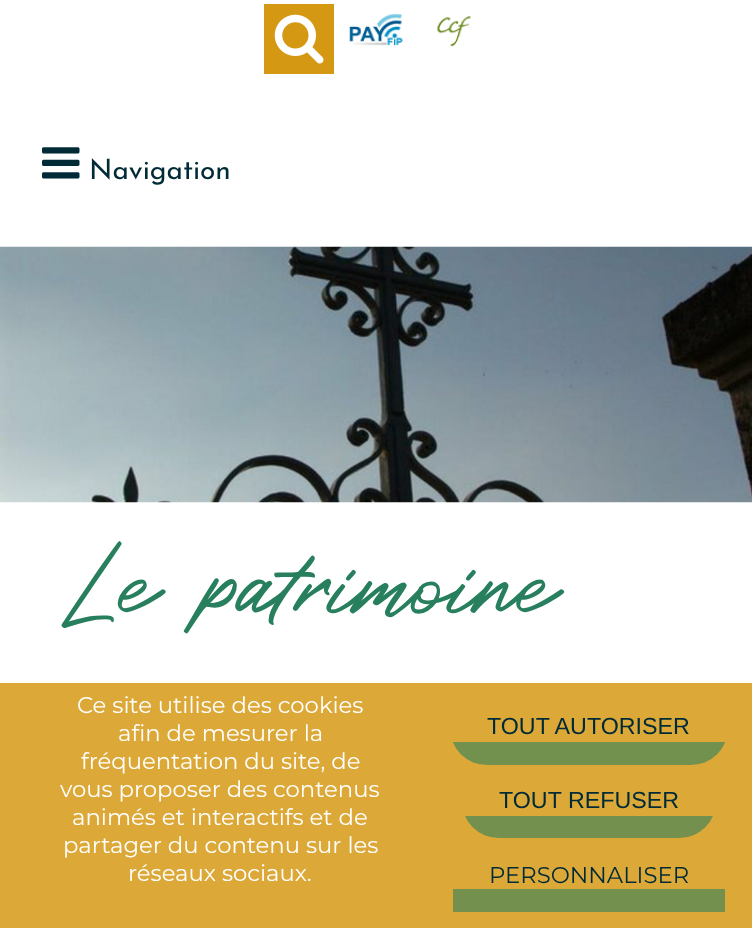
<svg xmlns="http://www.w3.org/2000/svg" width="752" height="928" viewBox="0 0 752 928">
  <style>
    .t1 { font: 100 28px Josefin Sans; fill: #012a37; }
    .t2 { font: 92.75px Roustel; fill: #277f5d; }
    .t3 { font: 22.75px Montserrat; fill: #fff; }
    .t4 { font: 23.25px Liberation Sans; fill: #012a37; }
    .t5 { font: 22.75px Montserrat; fill: #012a37; }
  </style>
  <defs>
    <clipPath id="clip1"><rect x="450" y="691" width="278" height="74" rx="37"/></clipPath>
    <clipPath id="clip2"><rect x="462" y="765" width="254" height="73" rx="36.5"/></clipPath>
  </defs>
  <rect width="100%" height="100%" fill="#fff"/>
  <rect x="264" y="4" width="70" height="70" fill="#d49812"/>
  <image x="274" y="14" width="50" height="50" href="images/1.png"/>
  <image x="348" y="14" width="55" height="32" href="images/2.png"/>
  <image x="436" y="16" width="35" height="31" href="images/3.png"/>
  <image x="42" y="147" width="38" height="32" href="images/4.png"/>
  <text x="89" y="179" class="t1">Navigation</text>
  <image x="0" y="246" width="752" height="257" href="images/5.png"/>
  <text x="64" y="610" class="t2">Le patrimoine</text>
  <rect x="0" y="683" width="752" height="245" fill="#d59813d6"/>
  <text x="77" y="713" class="t3">Ce site utilise des cookies</text>
  <text x="118" y="741" class="t3">afin de mesurer la</text>
  <text x="81" y="769" class="t3">fréquentation du site, de</text>
  <text x="60" y="797" class="t3">vous proposer des contenus</text>
  <text x="72" y="825" class="t3">animés et interactifs et de</text>
  <text x="63" y="853" class="t3">partager du contenu sur les</text>
  <text x="128" y="881" class="t3">réseaux sociaux.</text>
  <g clip-path="url(#clip1)">
    <rect x="452" y="742" width="274" height="23" fill="#277f5d94"/>
  </g>
  <text x="487" y="734" class="t4">TOUT AUTORISER</text>
  <g clip-path="url(#clip2)">
    <rect x="465" y="816" width="248" height="22" fill="#73904e"/>
  </g>
  <text x="499" y="808" class="t4">TOUT REFUSER</text>
  <rect x="453" y="889" width="272" height="23" fill="#73904e"/>
  <text x="489" y="883" class="t5">PERSONNALISER</text>
</svg>
